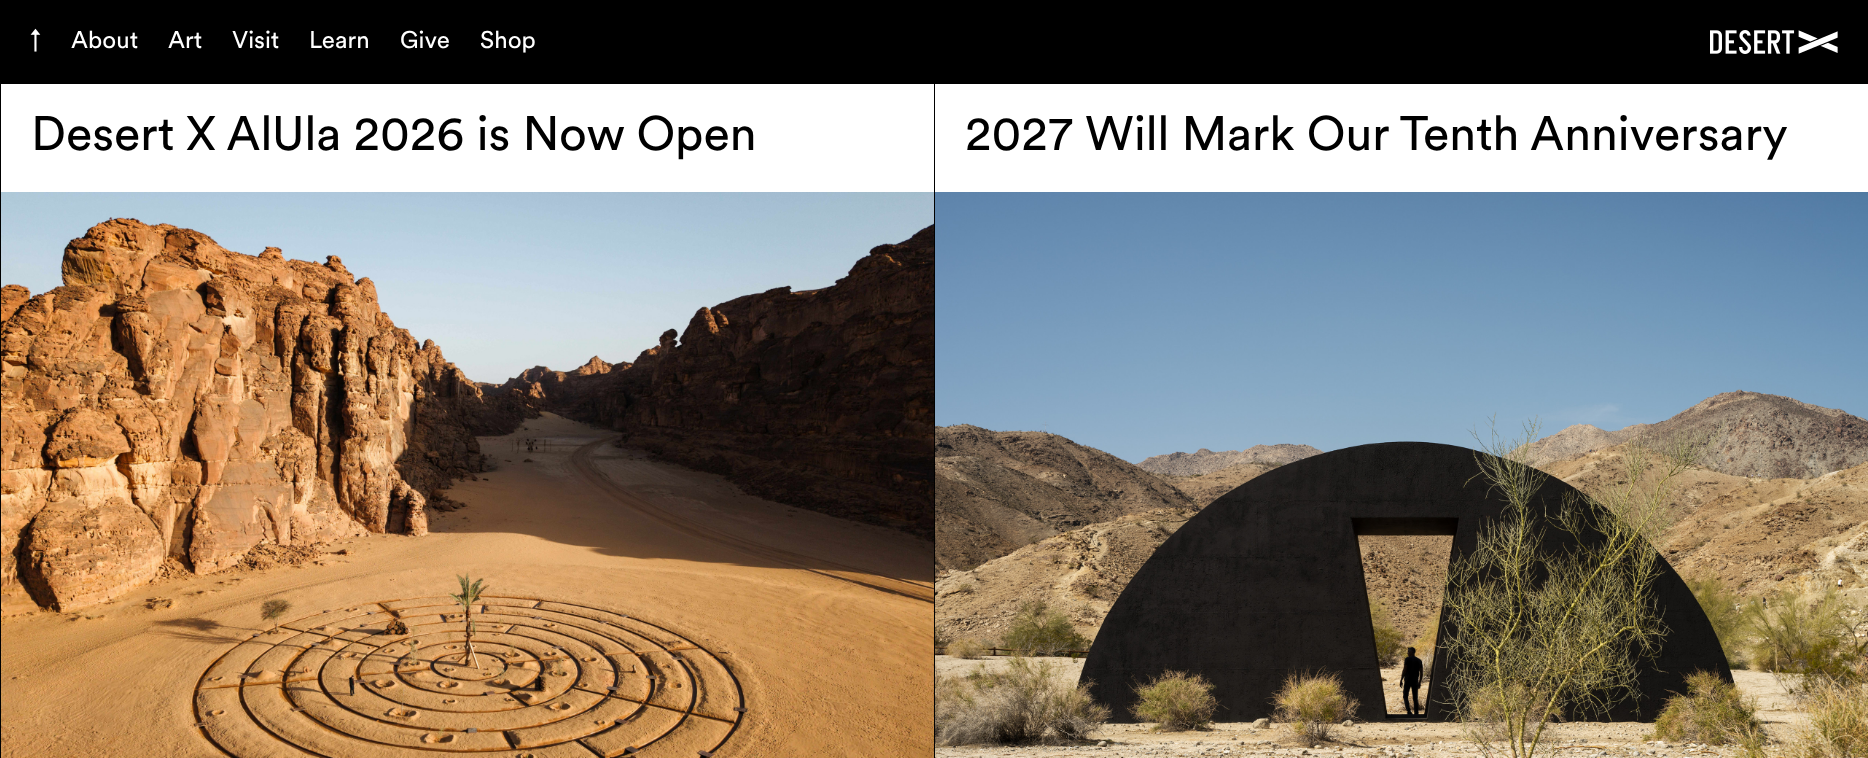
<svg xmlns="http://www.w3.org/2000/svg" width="1868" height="758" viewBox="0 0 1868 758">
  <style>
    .t1 { font: 24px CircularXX; fill: #fff; }
    .t2 { font: 48px CircularXX; fill: #000; }
  </style>
  <rect width="100%" height="100%" fill="#fff"/>
  <rect x="0" y="0" width="1868" height="83" fill="#000"/>
  <text x="30" y="48" class="t1">↑︎</text>
  <text x="71" y="48" class="t1">About</text>
  <text x="168" y="48" class="t1">Art</text>
  <text x="232" y="48" class="t1">Visit</text>
  <text x="309" y="48" class="t1">Learn</text>
  <text x="400" y="48" class="t1">Give</text>
  <text x="480" y="48" class="t1">Shop</text>
  <image x="1710" y="30" width="128" height="24" href="images/1.png"/>
  <rect x="0.5" y="83.5" width="934" height="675" fill="none" stroke="#000"/>
  <text x="31" y="150" class="t2">Desert X AlUla 2026 is Now Open</text>
  <image x="1" y="192" width="933" height="566" href="images/2.png"/>
  <rect x="934.5" y="83.5" width="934" height="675" fill="none" stroke="#000"/>
  <text x="965" y="150" class="t2">2027 Will Mark Our Tenth Anniversary</text>
  <image x="935" y="192" width="933" height="566" href="images/3.png"/>
</svg>
